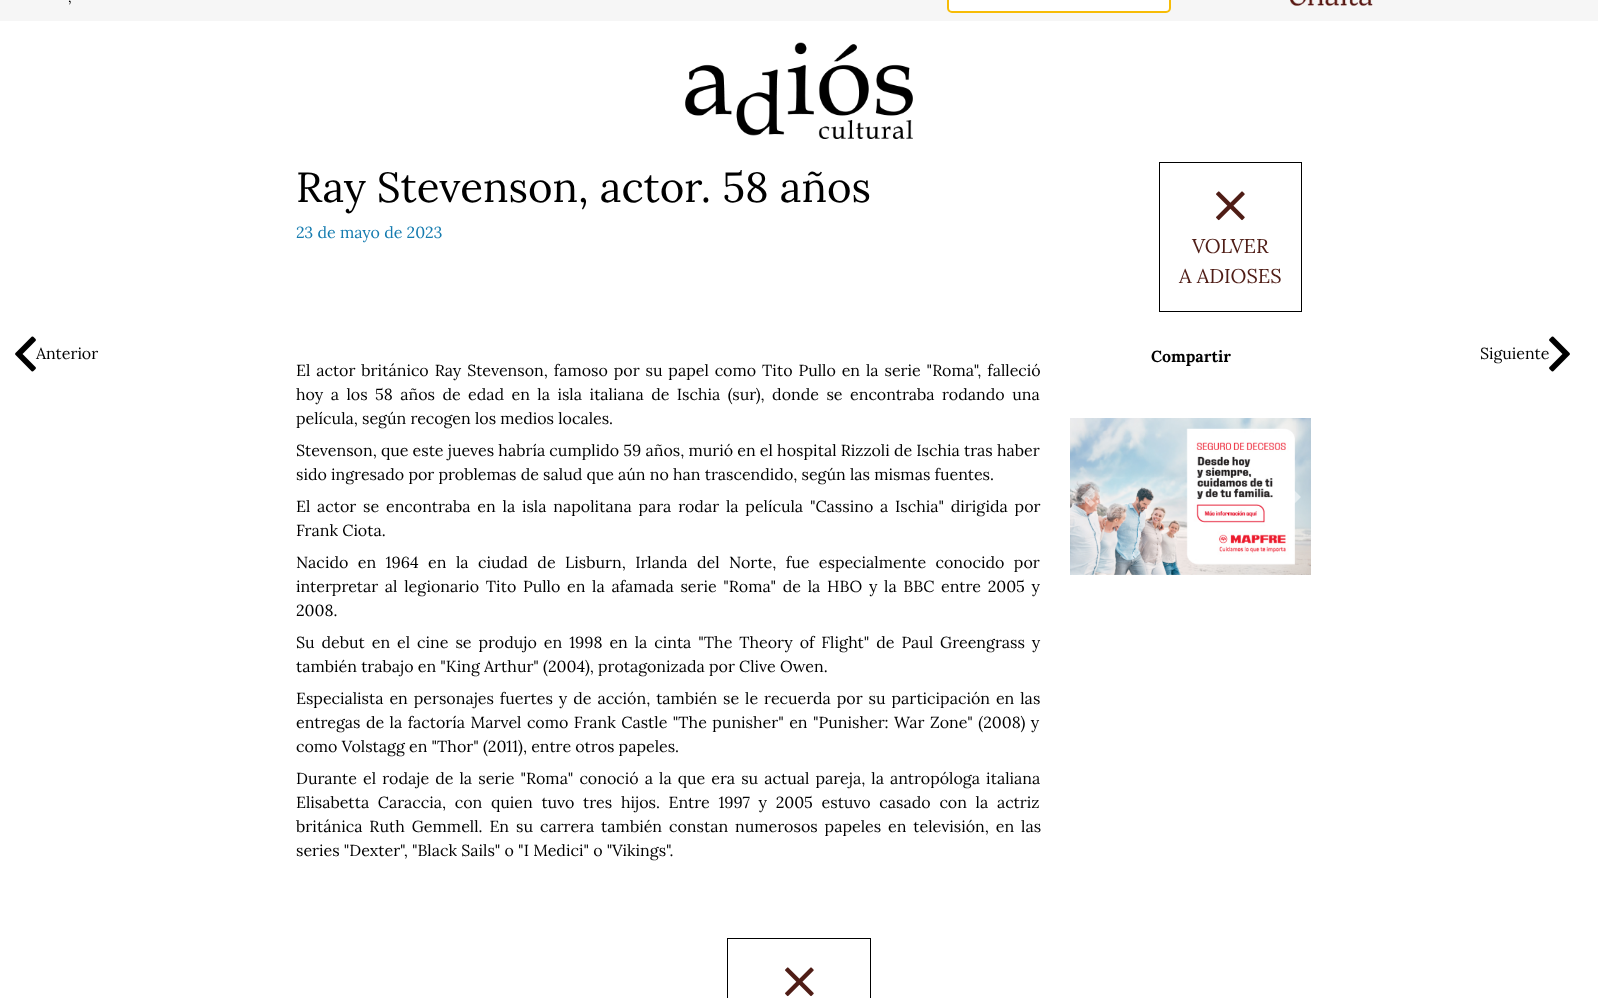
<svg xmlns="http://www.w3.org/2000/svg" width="1598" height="998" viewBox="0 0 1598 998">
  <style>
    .t1 { font: 14px Lora; fill: #000; }
    .t2 { font: 16px Lora; fill: #000; }
    .t3 { font: 42px Lora; fill: #000; }
    .t4 { font: 16px Lora; fill: #147baf; }
    .t5 { font: 20px Lora; fill: #4f1d16; }
    .t6 { font: bold 16px Lora; fill: #000; }
  </style>
  <rect width="100%" height="100%" fill="#fff"/>
  <rect x="0" y="0" width="1598" height="21" fill="#f6f6f6"/>
  <text x="68" y="2" class="t1">,</text>
  <rect x="948" y="-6" width="222" height="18" rx="4" fill="#fff" stroke="#f7bc06" stroke-width="2"/>
  <image x="1290" y="0" width="83" height="6" href="images/1.png"/>
  <image x="685" y="42" width="228" height="97" href="images/2.png"/>
  <image x="15" y="336" width="21" height="36" href="images/3.png"/>
  <text x="36" y="359" class="t2">Anterior</text>
  <text x="296" y="202" class="t3">Ray Stevenson, actor. 58 años</text>
  <text x="296" y="238" class="t4">23 de mayo de 2023</text>
  <rect x="1159.5" y="162.5" width="142" height="149" fill="none" stroke="#000"/>
  <image x="1216" y="191" width="29" height="30" href="images/4.png"/>
  <text x="1192" y="253" class="t5">VOLVER</text>
  <text x="1179" y="283" class="t5">A ADIOSES</text>
  <text x="1151" y="362" class="t6">Compartir</text>
  <image x="1070" y="418" width="241" height="157" href="images/5.png"/>
  <path d="M1091 487L1081 497L1091 507L1095 503L1088.5 497L1095 491Z" fill="#ffffff80"/>
  <path d="M1291 487L1287 491L1293.5 497L1287 503L1291 507L1301 497Z" fill="#ffffff80"/>
  <text x="296" y="376" word-spacing="1.7" class="t2">El actor británico Ray Stevenson, famoso por su papel como Tito Pullo en la serie "Roma", falleció</text>
  <text x="296" y="400" word-spacing="3.25" class="t2">hoy a los 58 años de edad en la isla italiana de Ischia (sur), donde se encontraba rodando una</text>
  <text x="296" y="424" class="t2">película, según recogen los medios locales.</text>
  <text x="296" y="456" class="t2">Stevenson, que este jueves habría cumplido 59 años, murió en el hospital Rizzoli de Ischia tras haber</text>
  <text x="296" y="480" class="t2">sido ingresado por problemas de salud que aún no han trascendido, según las mismas fuentes.</text>
  <text x="296" y="512" word-spacing="2.6" class="t2">El actor se encontraba en la isla napolitana para rodar la película "Cassino a Ischia" dirigida por</text>
  <text x="296" y="536" class="t2">Frank Ciota.</text>
  <text x="296" y="568" word-spacing="5.25" class="t2">Nacido en 1964 en la ciudad de Lisburn, Irlanda del Norte, fue especialmente conocido por</text>
  <text x="296" y="592" word-spacing="2.5" class="t2">interpretar al legionario Tito Pullo en la afamada serie "Roma" de la HBO y la BBC entre 2005 y</text>
  <text x="296" y="616" class="t2">2008.</text>
  <text x="296" y="648" word-spacing="2.75" class="t2">Su debut en el cine se produjo en 1998 en la cinta "The Theory of Flight" de Paul Greengrass y</text>
  <text x="296" y="672" class="t2">también trabajo en "King Arthur" (2004), protagonizada por Clive Owen.</text>
  <text x="296" y="704" word-spacing="1.75" class="t2">Especialista en personajes fuertes y de acción, también se le recuerda por su participación en las</text>
  <text x="296" y="728" word-spacing="1.25" class="t2">entregas de la factoría Marvel como Frank Castle "The punisher" en "Punisher: War Zone" (2008) y</text>
  <text x="296" y="752" class="t2">como Volstagg en "Thor" (2011), entre otros papeles.</text>
  <text x="296" y="784" word-spacing="1.9" class="t2">Durante el rodaje de la serie "Roma" conoció a la que era su actual pareja, la antropóloga italiana</text>
  <text x="296" y="808" word-spacing="4.5" class="t2">Elisabetta Caraccia, con quien tuvo tres hijos. Entre 1997 y 2005 estuvo casado con la actriz</text>
  <text x="296" y="832" word-spacing="2.75" class="t2">británica Ruth Gemmell. En su carrera también constan numerosos papeles en televisión, en las</text>
  <text x="296" y="856" class="t2">series "Dexter", "Black Sails" o "I Medici" o "Vikings".</text>
  <rect x="727.5" y="938.5" width="143" height="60" fill="none" stroke="#000"/>
  <image x="785" y="967" width="29" height="30" href="images/4.png"/>
  <text x="1480" y="359" class="t2">Siguiente</text>
  <image x="1549" y="336" width="21" height="36" href="images/6.png"/>
</svg>
